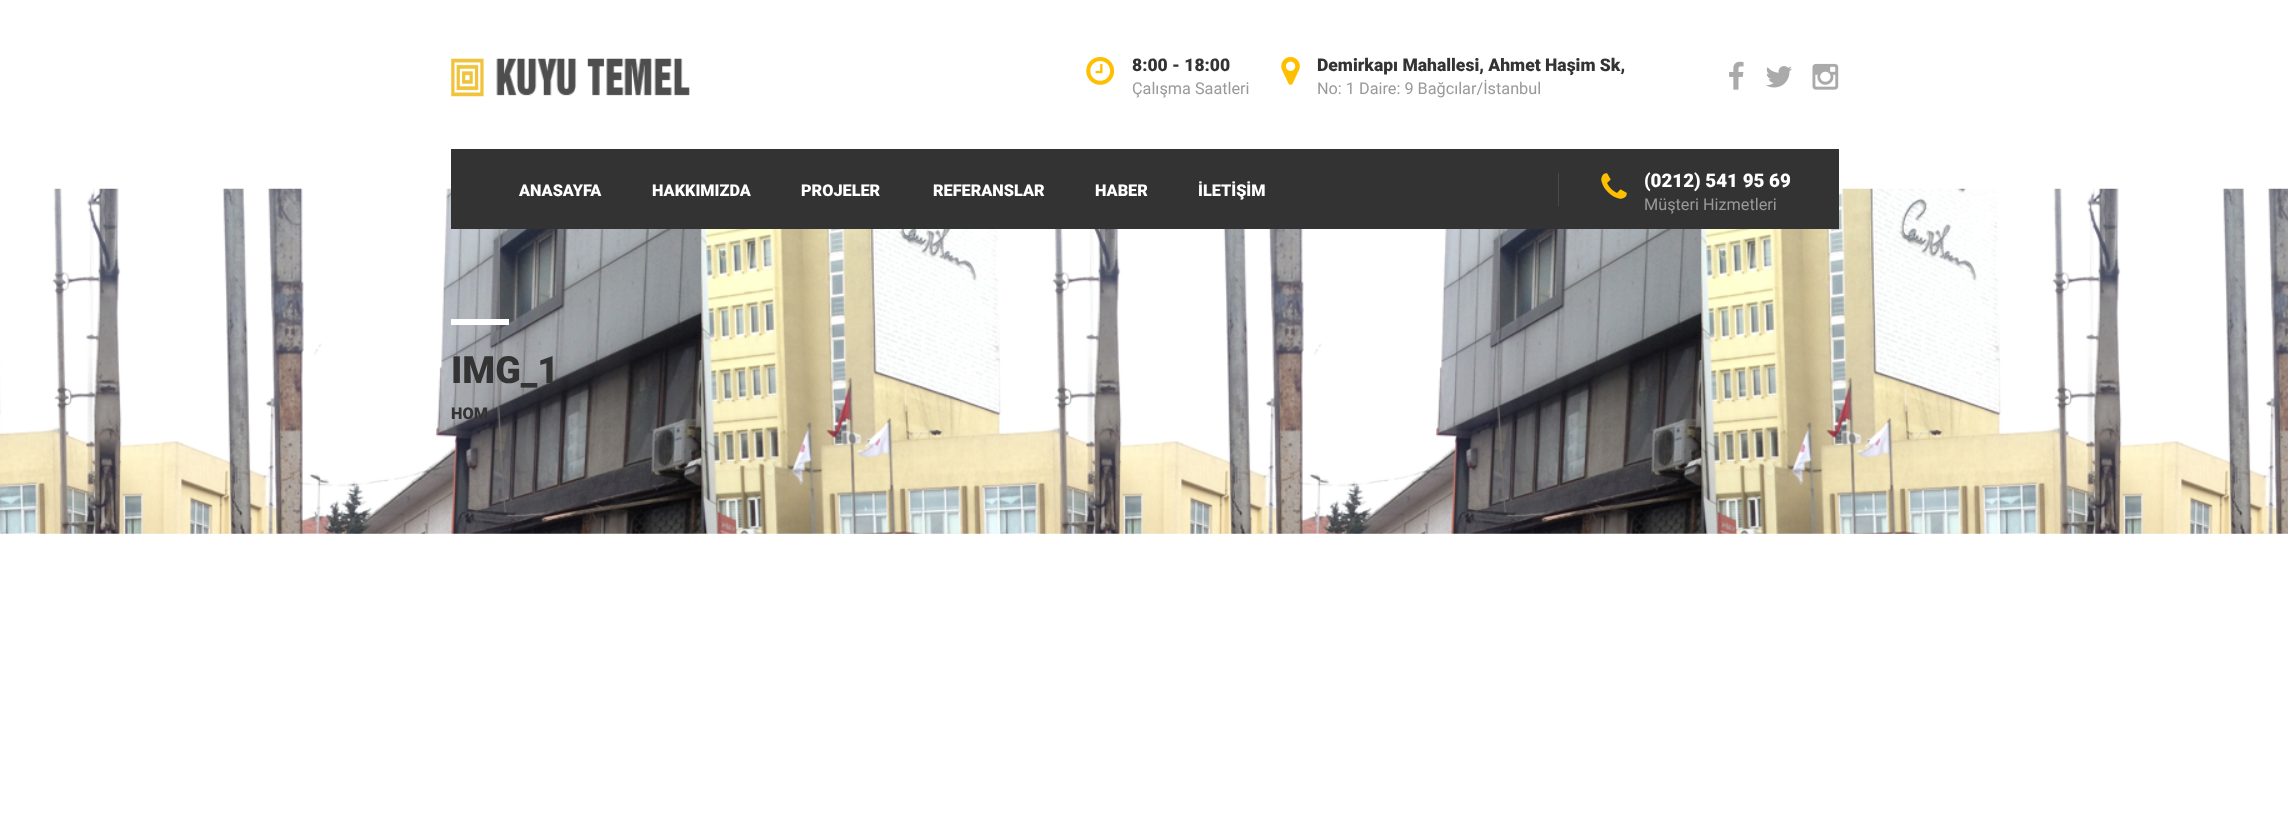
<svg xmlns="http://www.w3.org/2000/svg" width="2288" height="835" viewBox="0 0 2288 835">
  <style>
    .t1 { font: 900 17.5px Roboto; fill: #333; }
    .t2 { font: 16.25px Roboto; fill: #999; }
    .t3 { font: 900 16.25px Roboto; fill: #fff; }
    .t4 { font: 900 18.75px Roboto; fill: #fff; }
    .t5 { font: 900 37.5px Roboto; fill: #333; }
    .t6 { font: 900 16.25px Roboto; fill: #333; }
  </style>
  <rect width="100%" height="100%" fill="#fff"/>
  <image x="451" y="58" width="239" height="39" href="images/1.png"/>
  <image x="1086" y="57" width="29" height="28" href="images/2.png"/>
  <text x="1132" y="71" class="t1">8:00 - 18:00</text>
  <text x="1132" y="94" class="t2">Çalışma Saatleri</text>
  <image x="1281" y="57" width="19" height="28" href="images/3.png"/>
  <text x="1317" y="71" class="t1">Demirkapı Mahallesi, Ahmet Haşim Sk,</text>
  <text x="1317" y="94" class="t2">No: 1 Daire: 9 Bağcılar/İstanbul</text>
  <image x="1729" y="61" width="15" height="29" href="images/4.png"/>
  <image x="1766" y="66" width="26" height="22" href="images/5.png"/>
  <image x="1812" y="63" width="27" height="27" href="images/6.png"/>
  <image x="0" y="188" width="2288" height="346" href="images/8.png"/>
  <rect x="451" y="149" width="1388" height="80" fill="#333"/>
  <text x="519" y="196" class="t3">ANASAYFA</text>
  <text x="652" y="196" class="t3">HAKKIMIZDA</text>
  <text x="801" y="196" class="t3">PROJELER</text>
  <text x="933" y="196" class="t3">REFERANSLAR</text>
  <text x="1095" y="196" class="t3">HABER</text>
  <text x="1198" y="196" class="t3">İLETİŞİM</text>
  <rect x="1558" y="173" width="1" height="33" fill="#454b50"/>
  <image x="1601" y="173" width="26" height="26" href="images/7.png"/>
  <text x="1644" y="187" class="t4">(0212) 541 95 69</text>
  <text x="1644" y="210" class="t2">Müşteri Hizmetleri</text>
  <rect x="451" y="319" width="58" height="6" fill="#fff"/>
  <text x="451" y="383" class="t5">IMG_1</text>
  <text x="451" y="419" class="t6">HOM</text>
</svg>
